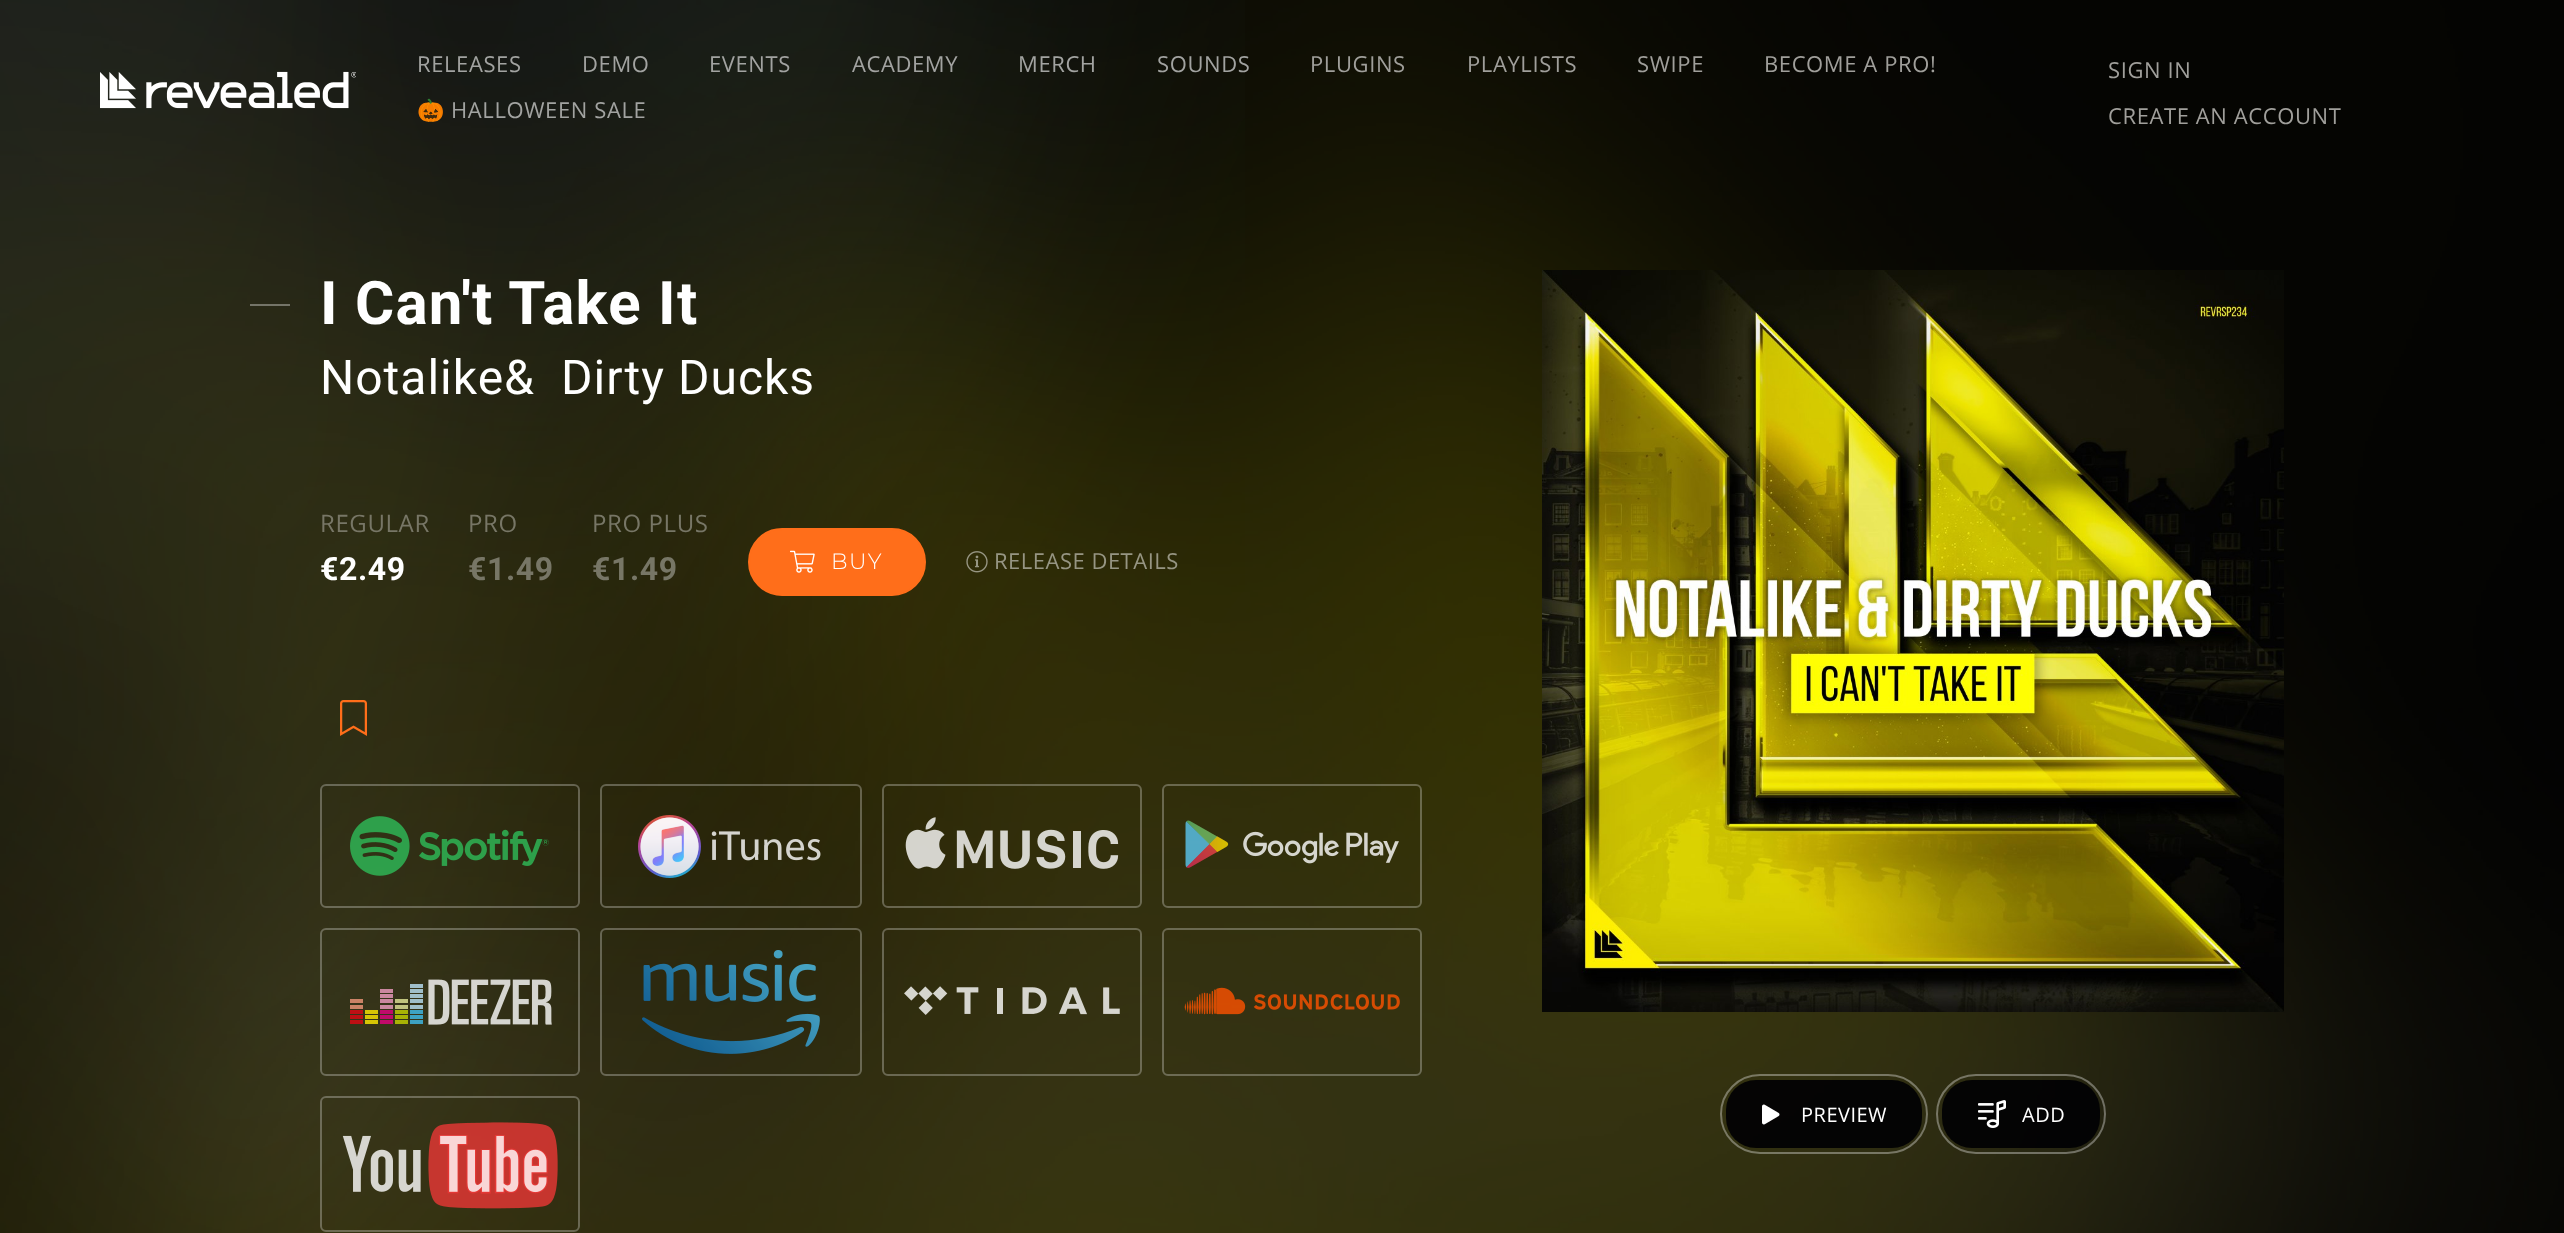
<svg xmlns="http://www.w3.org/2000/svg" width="2564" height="1233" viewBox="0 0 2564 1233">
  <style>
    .t1 { font: 22px Open Sans; letter-spacing: 0.6px; fill: #a2a3a1; }
    .t2 { font: 22px Open Sans; letter-spacing: 0.6px; fill: #a09f9b; }
    .t3 { font: 22px Noto Color Emoji; letter-spacing: 0.6px; fill: #a2a3a1; }
    .t4 { font: bold 60px Roboto; letter-spacing: 1.25px; fill: #fff; }
    .t5 { font: 48px Roboto; letter-spacing: 1px; fill: #fff; }
    .t6 { font: 24px Open Sans; letter-spacing: 0.6px; fill: #777666; }
    .t7 { font: bold 32px Roboto; letter-spacing: 0.6px; fill: #fff; }
    .t8 { font: bold 32px Roboto; letter-spacing: 0.6px; fill: #777666; }
    .t9 { font: 100 22px Montserrat; letter-spacing: 1.5px; fill: #fff; }
    .t10 { font: 22px Open Sans; letter-spacing: 0.5px; fill: #969583; }
    .t11 { font: 20px Open Sans; letter-spacing: 0.5px; fill: #fff; }
  </style>
  <rect width="100%" height="100%" fill="#000002"/>
  <image x="0" y="0" width="1245" height="1233" href="images/2.png"/>
  <image x="0" y="0" width="2564" height="1233" href="images/3.png"/>
  <image x="100" y="71" width="256" height="38" href="images/1.png"/>
  <text x="417" y="72" class="t1">RELEASES</text>
  <text x="582" y="72" class="t1">DEMO</text>
  <text x="709" y="72" class="t1">EVENTS</text>
  <text x="852" y="72" class="t1">ACADEMY</text>
  <text x="1018" y="72" class="t1">MERCH</text>
  <text x="1157" y="72" class="t1">SOUNDS</text>
  <text x="1310" y="72" class="t2">PLUGINS</text>
  <text x="1467" y="72" class="t2">PLAYLISTS</text>
  <text x="1637" y="72" class="t2">SWIPE</text>
  <text x="1764" y="72" class="t2">BECOME A PRO!</text>
  <text x="417" y="118" class="t3">🎃</text>
  <text x="451" y="118" class="t1">HALLOWEEN SALE</text>
  <text x="2108" y="78" class="t2">SIGN IN</text>
  <text x="2108" y="124" class="t2">CREATE AN ACCOUNT</text>
  <rect x="250" y="304" width="40" height="2" fill="#747468"/>
  <text x="320" y="324" class="t4">I Can't Take It</text>
  <text x="320" y="394" class="t5">Notalike</text>
  <text x="504" y="394" class="t5"> &amp;</text>
  <text x="561" y="394" class="t5">Dirty Ducks</text>
  <text x="320" y="532" class="t6">REGULAR</text>
  <text x="320" y="580" class="t7">€2.49</text>
  <text x="468" y="532" class="t6">PRO</text>
  <text x="468" y="580" class="t8">€1.49</text>
  <text x="592" y="532" class="t6">PRO PLUS</text>
  <text x="592" y="580" class="t8">€1.49</text>
  <rect x="749" y="529" width="176" height="66" rx="33" fill="#ff6e1a" stroke="#ff6e1a" stroke-width="2"/>
  <image x="790" y="550" width="25" height="23" href="images/4.png"/>
  <text x="831" y="569" class="t9">BUY</text>
  <image x="966" y="551" width="22" height="22" href="images/5.png"/>
  <text x="994" y="569" class="t10">RELEASE DETAILS</text>
  <image x="340" y="700" width="27" height="36" href="images/6.png"/>
  <rect x="321" y="785" width="258" height="122" rx="5" fill="none" stroke="#ffffff47" stroke-width="2"/>
  <image x="350" y="816" width="199" height="60" href="images/7.png"/>
  <rect x="601" y="785" width="260" height="122" rx="5" fill="none" stroke="#ffffff47" stroke-width="2"/>
  <image x="638" y="815" width="183" height="63" href="images/8.png"/>
  <rect x="883" y="785" width="258" height="122" rx="5" fill="none" stroke="#ffffff47" stroke-width="2"/>
  <image x="905" y="817" width="214" height="52" href="images/9.png"/>
  <rect x="1163" y="785" width="258" height="122" rx="5" fill="none" stroke="#ffffff47" stroke-width="2"/>
  <image x="1185" y="820" width="214" height="48" href="images/10.png"/>
  <rect x="321" y="929" width="258" height="146" rx="5" fill="none" stroke="#ffffff47" stroke-width="2"/>
  <image x="350" y="979" width="202" height="46" href="images/11.png"/>
  <rect x="601" y="929" width="260" height="146" rx="5" fill="none" stroke="#ffffff47" stroke-width="2"/>
  <image x="642" y="950" width="178" height="104" href="images/12.png"/>
  <rect x="883" y="929" width="258" height="146" rx="5" fill="none" stroke="#ffffff47" stroke-width="2"/>
  <image x="904" y="986" width="216" height="29" href="images/13.png"/>
  <rect x="1163" y="929" width="258" height="146" rx="5" fill="none" stroke="#ffffff47" stroke-width="2"/>
  <image x="1184" y="987" width="216" height="28" href="images/14.png"/>
  <rect x="321" y="1097" width="258" height="134" rx="5" fill="none" stroke="#ffffff47" stroke-width="2"/>
  <image x="342" y="1122" width="216" height="87" href="images/15.png"/>
  <image x="1542" y="270" width="742" height="742" href="images/16.png"/>
  <rect x="1721" y="1075" width="206" height="78" rx="39" fill="none" stroke="#ffffff59" stroke-width="2"/>
  <rect x="1726" y="1080" width="196" height="68" rx="30" fill="#000003e6"/>
  <image x="1762" y="1104" width="18" height="21" href="images/17.png"/>
  <text x="1801" y="1122" class="t11">PREVIEW</text>
  <rect x="1937" y="1075" width="168" height="78" rx="39" fill="none" stroke="#ffffff59" stroke-width="2"/>
  <rect x="1942" y="1080" width="158" height="68" rx="30" fill="#000003e6"/>
  <image x="1978" y="1100" width="28" height="28" href="images/18.png"/>
  <text x="2022" y="1122" class="t11">ADD</text>
</svg>
